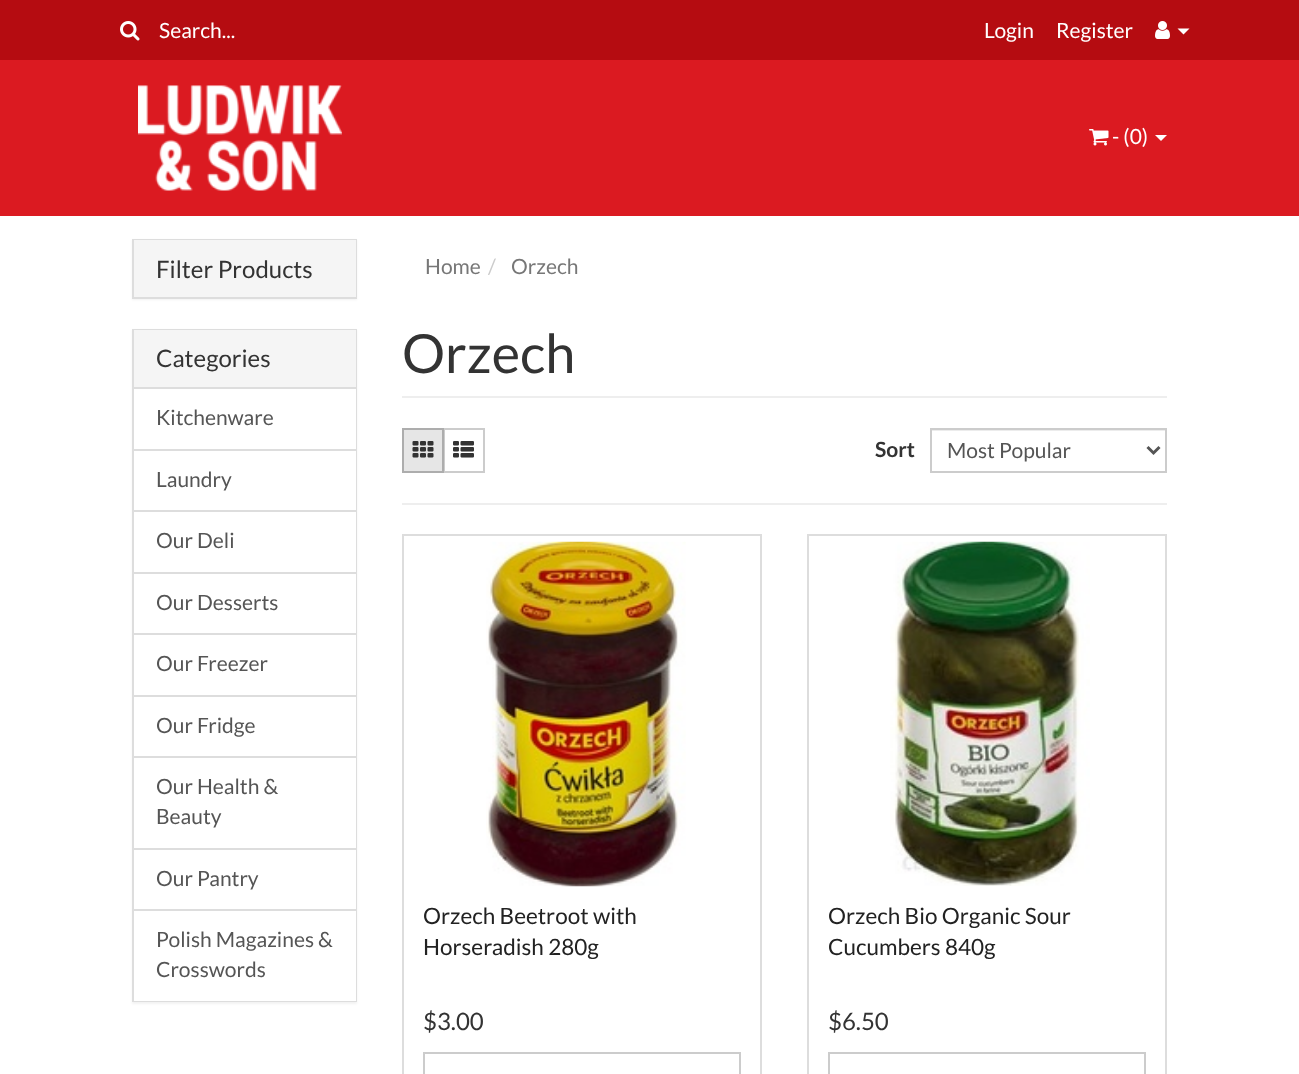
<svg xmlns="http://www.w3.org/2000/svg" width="1299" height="1074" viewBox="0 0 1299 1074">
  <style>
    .t1 { font: 21px Lato; fill: #fff; }
    .t2 { font: 24px Lato; fill: #333; }
    .t3 { font: 21px Lato; fill: #555; }
    .t4 { font: 21px Lato; fill: #777; }
    .t5 { font: 21px Lato; fill: #ccc; }
    .t6 { font: 54px Lato; fill: #333; }
    .t7 { font: bold 21px Lato; fill: #333; }
    .t8 { font: 22.5px Lato; fill: #222; }
  </style>
  <rect width="100%" height="100%" fill="#fff"/>
  <rect x="0" y="0" width="1299" height="60" fill="#b50c11"/>
  <image x="120" y="21" width="20" height="20" href="images/1.png"/>
  <text x="159" y="38" class="t1">Search...</text>
  <text x="984" y="38" class="t1">Login</text>
  <text x="1056" y="38" class="t1">Register</text>
  <image x="1155" y="21" width="15" height="18" href="images/2.png"/>
  <path d="M1177.5 28.5H1189.5L1183.5 34.5Z" fill="#fff"/>
  <rect x="0" y="60" width="1299" height="156" fill="#db1a21"/>
  <image x="138" y="85" width="204" height="106" href="images/3.png"/>
  <image x="1089" y="129" width="20" height="17" href="images/4.png"/>
  <text x="1112" y="144" class="t1">- (0)</text>
  <path d="M1155 135H1167L1161 141Z" fill="#fff"/>
  <rect x="132" y="240" width="225" height="60" fill="#0000000d" filter="blur(1px)"/>
  <rect x="133" y="240" width="223" height="58" fill="none" stroke="#ddd" stroke-width="2"/>
  <rect x="134" y="240" width="222" height="57" fill="#f5f5f5"/>
  <text x="156" y="278" class="t2">Filter Products</text>
  <rect x="132" y="330" width="225" height="674" fill="#0000000d" filter="blur(1px)"/>
  <rect x="133" y="330" width="223" height="671" fill="none" stroke="#ddd" stroke-width="2"/>
  <rect x="134" y="330" width="222" height="57" fill="#f5f5f5"/>
  <rect x="134" y="387" width="222" height="2" fill="#ddd"/>
  <text x="156" y="367" class="t2">Categories</text>
  <rect x="134" y="389" width="222" height="60" fill="#fff"/>
  <text x="156" y="425" class="t3">Kitchenware</text>
  <rect x="134" y="451" width="222" height="59" fill="#fff"/>
  <rect x="134" y="449" width="222" height="2" fill="#ddd"/>
  <text x="156" y="487" class="t3">Laundry</text>
  <rect x="134" y="512" width="222" height="60" fill="#fff"/>
  <rect x="134" y="510" width="222" height="2" fill="#ddd"/>
  <text x="156" y="548" class="t3">Our Deli</text>
  <rect x="134" y="574" width="222" height="59" fill="#fff"/>
  <rect x="134" y="572" width="222" height="2" fill="#ddd"/>
  <text x="156" y="610" class="t3">Our Desserts</text>
  <rect x="134" y="635" width="222" height="60" fill="#fff"/>
  <rect x="134" y="633" width="222" height="2" fill="#ddd"/>
  <text x="156" y="671" class="t3">Our Freezer</text>
  <rect x="134" y="697" width="222" height="59" fill="#fff"/>
  <rect x="134" y="695" width="222" height="2" fill="#ddd"/>
  <rect x="134" y="756" width="222" height="2" fill="#ddd"/>
  <text x="156" y="733" class="t3">Our Fridge</text>
  <rect x="134" y="758" width="222" height="90" fill="#fff"/>
  <text x="156" y="794" class="t3">Our Health &amp;</text>
  <text x="156" y="824" class="t3">Beauty</text>
  <rect x="134" y="850" width="222" height="59" fill="#fff"/>
  <rect x="134" y="848" width="222" height="2" fill="#ddd"/>
  <text x="156" y="886" class="t3">Our Pantry</text>
  <rect x="134" y="911" width="222" height="90" fill="#fff"/>
  <rect x="134" y="909" width="222" height="2" fill="#ddd"/>
  <text x="156" y="947" class="t3">Polish Magazines &amp;</text>
  <text x="156" y="977" class="t3">Crosswords</text>
  <text x="425" y="274" class="t4">Home</text>
  <text x="488" y="274" class="t5">/</text>
  <text x="511" y="274" class="t4">Orzech</text>
  <rect x="402" y="396" width="765" height="2" fill="#eee"/>
  <text x="402" y="373" class="t6">Orzech</text>
  <rect x="444" y="429" width="40" height="43" fill="none" stroke="#ccc" stroke-width="2"/>
  <rect x="403" y="429" width="40" height="43" fill="#e6e6e6" stroke="#adadad" stroke-width="2"/>
  <image x="412" y="441" width="22" height="17" href="images/5.png"/>
  <image x="453" y="441" width="21" height="17" href="images/6.png"/>
  <text x="875" y="457" class="t7">Sort</text>
  <rect x="932" y="430" width="234" height="1" fill="#ececec"/>
  <rect x="931" y="429" width="235" height="43" fill="none" stroke="#ccc" stroke-width="2"/>
  <path d="M1147.5 447L1153.5 453L1159.5 447" fill="none" stroke="#555" stroke-width="3"/>
  <text x="947" y="458" class="t3">Most Popular</text>
  <rect x="402" y="503" width="765" height="2" fill="#eee"/>
  <rect x="403" y="535" width="358" height="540" fill="none" stroke="#ddd" stroke-width="2"/>
  <image x="486" y="541" width="200" height="346" href="images/7.png"/>
  <text x="423" y="924" class="t8">Orzech Beetroot with</text>
  <text x="423" y="955" class="t8">Horseradish 280g</text>
  <text x="423" y="1030" class="t2">$3.00</text>
  <rect x="424" y="1053" width="316" height="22" fill="none" stroke="#ccc" stroke-width="2"/>
  <rect x="808" y="535" width="358" height="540" fill="none" stroke="#ddd" stroke-width="2"/>
  <image x="890" y="541" width="200" height="345" href="images/8.png"/>
  <text x="828" y="924" class="t8">Orzech Bio Organic Sour</text>
  <text x="828" y="955" class="t8">Cucumbers 840g</text>
  <text x="828" y="1030" class="t2">$6.50</text>
  <rect x="829" y="1053" width="316" height="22" fill="none" stroke="#ccc" stroke-width="2"/>
</svg>
